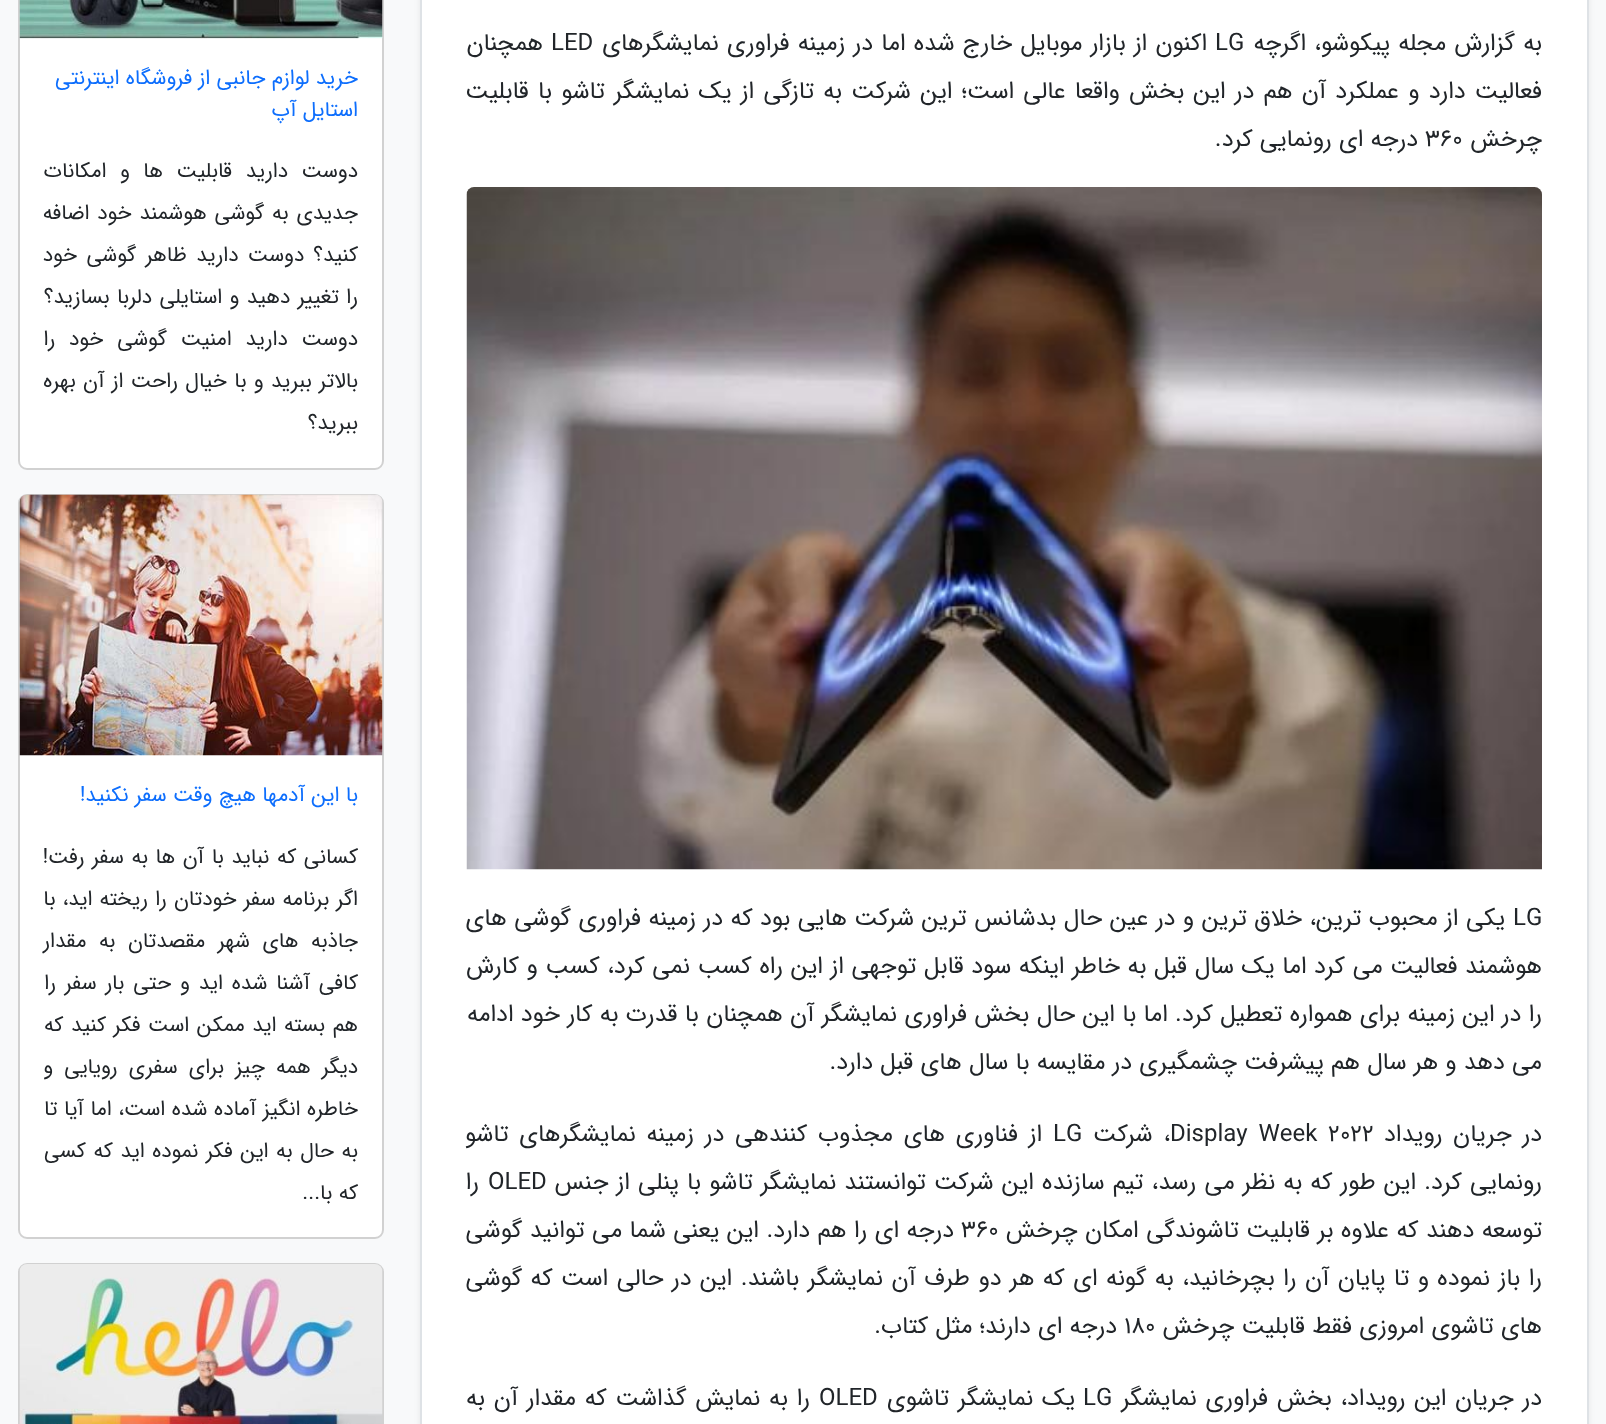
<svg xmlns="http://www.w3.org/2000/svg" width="1606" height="1424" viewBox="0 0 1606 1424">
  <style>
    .t1 { font: 24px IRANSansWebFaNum; direction: rtl; fill: #212529; }
    .t2 { font: 24px IRANSansWebFaNum; fill: #212529; }
    .t3 { font: 21px IRANSansWebFaNum; direction: rtl; fill: #0d6efd; }
    .t4 { font: 21px IRANSansWebFaNum; direction: rtl; fill: #212529; }
  </style>
  <rect width="100%" height="100%" fill="#f8f9fa"/>
  <rect x="420" y="-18" width="1169" height="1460" rx="9" fill="#00000012" filter="blur(3px)"/>
  <rect x="421" y="-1" width="1167" height="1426" fill="#fff" stroke="#dee2e6" stroke-width="2"/>
  <text x="1542" y="50" word-spacing="1" class="t1">به گزارش مجله پیکوشو، اگرچه</text>
  <text x="1215" y="50" class="t2">LG</text>
  <text x="1207" y="50" word-spacing="1" class="t1">اکنون از بازار موبایل خارج شده اما در زمینه فراوری نمایشگرهای</text>
  <text x="551" y="50" class="t2">LED</text>
  <text x="543" y="50" class="t1">همچنان</text>
  <text x="1542" y="98" word-spacing="2" class="t1">فعالیت دارد و عملکرد آن هم در این بخش واقعا عالی است؛ این شرکت به تازگی از یک نمایشگر تاشو با قابلیت</text>
  <text x="1542" y="146" class="t1">چرخش</text>
  <text x="1425" y="146" class="t2">360</text>
  <text x="1418" y="146" class="t1">درجه ای رونمایی کرد.</text>
  <image x="466" y="187" width="1076" height="683" href="images/1.png"/>
  <text x="1513" y="925" class="t2">LG</text>
  <text x="1505" y="925" word-spacing="0.25" class="t1">یکی از محبوب ترین، خلاق ترین و در عین حال بدشانس ترین شرکت هایی بود که در زمینه فراوری گوشی های</text>
  <text x="1542" y="973" word-spacing="0.35" class="t1">هوشمند فعالیت می کرد اما یک سال قبل به خاطر اینکه سود قابل توجهی از این راه کسب نمی کرد، کسب و کارش</text>
  <text x="1542" y="1021" word-spacing="0.1" class="t1">را در این زمینه برای همواره تعطیل کرد. اما با این حال بخش فراوری نمایشگر آن همچنان با قدرت به کار خود ادامه</text>
  <text x="1542" y="1069" class="t1">می دهد و هر سال هم پیشرفت چشمگیری در مقایسه با سال های قبل دارد.</text>
  <text x="1542" y="1141" word-spacing="3.5" class="t1">در جریان رویداد</text>
  <text x="1170" y="1141" word-spacing="3.5" class="t2">Display Week 2022</text>
  <text x="1170" y="1141" word-spacing="3.5" class="t1">، شرکت</text>
  <text x="1053" y="1141" class="t2">LG</text>
  <text x="1042" y="1141" word-spacing="3.5" class="t1">از فناوری های مجذوب کنندهی در زمینه نمایشگرهای تاشو</text>
  <text x="1542" y="1189" word-spacing="0.9" class="t1">رونمایی کرد. این طور که به نظر می رسد، تیم سازنده این شرکت توانستند نمایشگر تاشو با پنلی از جنس</text>
  <text x="488" y="1189" class="t2">OLED</text>
  <text x="479" y="1189" class="t1">را</text>
  <text x="1542" y="1237" word-spacing="0.25" class="t1">توسعه دهند که علاوه بر قابلیت تاشوندگی امکان چرخش</text>
  <text x="961" y="1237" class="t2">360</text>
  <text x="954" y="1237" word-spacing="0.25" class="t1">درجه ای را هم دارد. این یعنی شما می توانید گوشی</text>
  <text x="1542" y="1285" word-spacing="1.2" class="t1">را باز نموده و تا پایان آن را بچرخانید، به گونه ای که هر دو طرف آن نمایشگر باشند. این در حالی است که گوشی</text>
  <text x="1542" y="1333" class="t1">های تاشوی امروزی فقط قابلیت چرخش</text>
  <text x="1124" y="1333" class="t2">180</text>
  <text x="1117" y="1333" class="t1">درجه ای دارند؛ مثل کتاب.</text>
  <text x="1542" y="1405" word-spacing="1.5" class="t1">در جریان این رویداد، بخش فراوری نمایشگر</text>
  <text x="1083" y="1405" class="t2">LG</text>
  <text x="1075" y="1405" word-spacing="1.5" class="t1">یک نمایشگر تاشوی</text>
  <text x="819" y="1405" class="t2">OLED</text>
  <text x="810" y="1405" word-spacing="1.5" class="t1">را به نمایش گذاشت که مقدار آن به</text>
  <rect x="18" y="-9" width="366" height="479" rx="9" fill="#fff"/>
  <rect x="19" y="-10" width="364" height="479" rx="8" fill="none" stroke="#0000002e" stroke-width="2"/>
  <image x="19" y="0" width="364" height="39" href="images/2.png"/>
  <text x="358" y="84" class="t3">خرید لوازم جانبی از فروشگاه اینترنتی</text>
  <text x="358" y="116" class="t3">استایل آپ</text>
  <text x="358" y="177" word-spacing="7.25" class="t4">دوست دارید قابلیت ها و امکانات</text>
  <text x="358" y="219" word-spacing="1.5" class="t4">جدیدی به گوشی هوشمند خود اضافه</text>
  <text x="358" y="261" word-spacing="3" class="t4">کنید؟ دوست دارید ظاهر گوشی خود</text>
  <text x="358" y="303" word-spacing="1" class="t4">را تغییر دهید و استایلی دلربا بسازید؟</text>
  <text x="358" y="345" word-spacing="7.5" class="t4">دوست دارید امنیت گوشی خود را</text>
  <text x="358" y="387" word-spacing="1" class="t4">بالاتر ببرید و با خیال راحت از آن بهره</text>
  <text x="358" y="429" class="t4">ببرید؟</text>
  <rect x="18" y="494" width="366" height="745" rx="9" fill="#fff"/>
  <rect x="19" y="495" width="364" height="743" rx="8" fill="none" stroke="#0000002e" stroke-width="2"/>
  <image x="19" y="494" width="364" height="262" href="images/3.png"/>
  <text x="358" y="801" class="t3">با این آدمها هیچ وقت سفر نکنید!</text>
  <text x="358" y="863" word-spacing="1.25" class="t4">کسانی که نباید با آن ها به سفر رفت!</text>
  <text x="358" y="905" word-spacing="0.75" class="t4">اگر برنامه سفر خودتان را ریخته اید، با</text>
  <text x="358" y="947" word-spacing="6.25" class="t4">جاذبه های شهر مقصدتان به مقدار</text>
  <text x="358" y="989" word-spacing="2.5" class="t4">کافی آشنا شده اید و حتی بار سفر را</text>
  <text x="358" y="1031" word-spacing="1.25" class="t4">هم بسته اید ممکن است فکر کنید که</text>
  <text x="358" y="1073" word-spacing="4.75" class="t4">دیگر همه چیز برای سفری رویایی و</text>
  <text x="358" y="1115" word-spacing="0.25" class="t4">خاطره انگیز آماده شده است، اما آیا تا</text>
  <text x="358" y="1157" word-spacing="1.25" class="t4">به حال به این فکر نموده اید که کسی</text>
  <text x="358" y="1199" class="t4">که با...</text>
  <rect x="18" y="1263" width="366" height="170" rx="9" fill="#fff"/>
  <rect x="19" y="1264" width="364" height="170" rx="8" fill="none" stroke="#0000002e" stroke-width="2"/>
  <image x="19" y="1264" width="364" height="160" href="images/4.png"/>
</svg>
